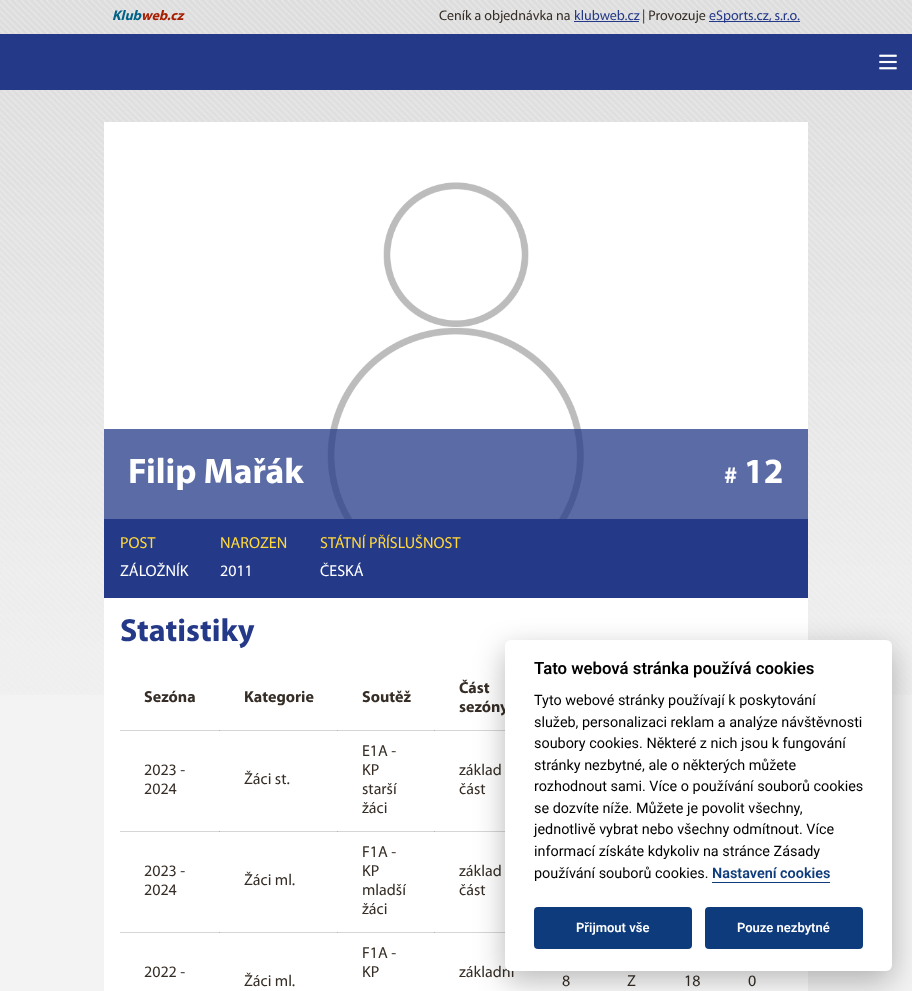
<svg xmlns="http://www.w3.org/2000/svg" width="912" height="991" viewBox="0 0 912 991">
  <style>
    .t1 { font: italic bold 14px Myriad; fill: #006287; }
    .t2 { font: italic bold 14px Myriad; fill: #a61d00; }
    .t3 { font: 14px Myriad; fill: #352d26; }
    .t4 { font: 14px Myriad; fill: #243988; }
    .t5 { font: bold 35.5px Myriad; fill: #fff; }
    .t6 { font: bold 24px Myriad; fill: #fff; }
    .t7 { font: 16px Myriad; fill: #ffd83b; }
    .t8 { font: 16px Myriad; fill: #fff; }
    .t9 { font: bold 32px Myriad; fill: #243988; }
    .t10 { font: bold 16px Myriad; fill: #352d26; }
    .t11 { font: 16px Myriad; fill: #352d26; }
    .t12 { font: 600 16.75px Roboto; fill: #000; }
    .t13 { font: 14.4px Roboto; fill: #000; }
    .t14 { font: 600 14.4px Roboto; fill: #0e3b7c; }
    .t15 { font: 600 13px Roboto; fill: #fff; }
  </style>
  <rect width="100%" height="100%" fill="#f3f3f3"/>
  <image x="0" y="0" width="912" height="695" href="images/1.png"/>
  <text x="112" y="20" class="t1">Klub</text>
  <text x="141" y="20" class="t2">web.cz</text>
  <text x="439" y="20" class="t3">Ceník a objednávka na</text>
  <text x="574" y="20" class="t4">klubweb.cz</text>
  <rect x="574" y="21" width="65" height="1" fill="#243988"/>
  <text x="642" y="20" class="t3">| Provozuje</text>
  <rect x="709" y="21" width="91" height="1" fill="#243988"/>
  <text x="709" y="20" class="t4">eSports.cz, s.r.o.</text>
  <rect x="0" y="34" width="912" height="56" fill="#243988"/>
  <image x="879" y="54" width="18" height="16" href="images/2.png"/>
  <rect x="104" y="122" width="704" height="869" fill="#fff"/>
  <rect x="120" y="730" width="385" height="1" fill="#d6d6d6"/>
  <rect x="219" y="730" width="1" height="1" fill="#b5b5b5"/>
  <rect x="337" y="730" width="1" height="1" fill="#b5b5b5"/>
  <rect x="434" y="730" width="1" height="1" fill="#b5b5b5"/>
  <rect x="120" y="831" width="385" height="1" fill="#d6d6d6"/>
  <rect x="219" y="831" width="1" height="1" fill="#b5b5b5"/>
  <rect x="337" y="831" width="1" height="1" fill="#b5b5b5"/>
  <rect x="434" y="831" width="1" height="1" fill="#b5b5b5"/>
  <rect x="120" y="932" width="385" height="1" fill="#d6d6d6"/>
  <rect x="219" y="932" width="1" height="1" fill="#b5b5b5"/>
  <rect x="337" y="932" width="1" height="1" fill="#b5b5b5"/>
  <rect x="434" y="932" width="1" height="1" fill="#b5b5b5"/>
  <image x="327" y="182" width="257" height="337" href="images/3.png"/>
  <rect x="104" y="429" width="704" height="90" fill="#243988bf"/>
  <text x="128" y="483" class="t5">Filip Mařák</text>
  <text x="724" y="483" class="t6">#</text>
  <text x="744" y="483" class="t5">12</text>
  <rect x="104" y="519" width="704" height="79" fill="#243988"/>
  <text x="120" y="548" class="t7">POST</text>
  <text x="120" y="576" class="t8">ZÁLOŽNÍK</text>
  <text x="220" y="548" class="t7">NAROZEN</text>
  <text x="220" y="576" class="t8">2011</text>
  <text x="320" y="548" class="t7">STÁTNÍ PŘÍSLUŠNOST</text>
  <text x="320" y="576" class="t8">ČESKÁ</text>
  <text x="120" y="641" class="t9">Statistiky</text>
  <text x="144" y="702" class="t10">Sezóna</text>
  <text x="244" y="702" class="t10">Kategorie</text>
  <text x="362" y="702" class="t10">Soutěž</text>
  <text x="459" y="693" class="t10">Část</text>
  <text x="459" y="712" class="t10">sezóny</text>
  <text x="144" y="775" class="t11">2023 -</text>
  <text x="144" y="794" class="t11">2024</text>
  <text x="244" y="784" class="t11">Žáci st.</text>
  <text x="362" y="756" class="t11">E1A -</text>
  <text x="362" y="775" class="t11">KP</text>
  <text x="362" y="794" class="t11">starší</text>
  <text x="362" y="813" class="t11">žáci</text>
  <text x="459" y="775" class="t11">základ</text>
  <text x="459" y="794" class="t11">část</text>
  <text x="144" y="876" class="t11">2023 -</text>
  <text x="144" y="895" class="t11">2024</text>
  <text x="244" y="885" class="t11">Žáci ml.</text>
  <text x="362" y="857" class="t11">F1A -</text>
  <text x="362" y="876" class="t11">KP</text>
  <text x="362" y="895" class="t11">mladší</text>
  <text x="362" y="914" class="t11">žáci</text>
  <text x="459" y="876" class="t11">základ</text>
  <text x="459" y="895" class="t11">část</text>
  <text x="144" y="977" class="t11">2022 -</text>
  <text x="244" y="986" class="t11">Žáci ml.</text>
  <text x="362" y="958" class="t11">F1A -</text>
  <text x="362" y="977" class="t11">KP</text>
  <text x="459" y="977" class="t11">základní</text>
  <text x="562" y="986" class="t11">8</text>
  <text x="627" y="986" class="t11">Z</text>
  <text x="684" y="986" class="t11">18</text>
  <text x="748" y="986" class="t11">0</text>
  <rect x="505" y="650" width="387" height="331" rx="6" fill="#02020347" filter="blur(15px)"/>
  <rect x="505" y="640" width="387" height="331" rx="6" fill="#fff"/>
  <text x="534" y="674" class="t12">Tato webová stránka používá cookies</text>
  <text x="534" y="705" class="t13">Tyto webové stránky používají k poskytování</text>
  <text x="534" y="727" class="t13">služeb, personalizaci reklam a analýze návštěvnosti</text>
  <text x="534" y="748" class="t13">soubory cookies. Některé z nich jsou k fungování</text>
  <text x="534" y="770" class="t13">stránky nezbytné, ale o některých můžete</text>
  <text x="534" y="791" class="t13">rozhodnout sami. Více o používání souborů cookies</text>
  <text x="534" y="813" class="t13">se dozvíte níže. Můžete je povolit všechny,</text>
  <text x="534" y="834" class="t13">jednotlivě vybrat nebo všechny odmítnout. Více</text>
  <text x="534" y="856" class="t13">informací získáte kdykoliv na stránce Zásady</text>
  <text x="534" y="878" class="t13">používání souborů cookies.</text>
  <text x="712" y="878" class="t14">Nastavení cookies</text>
  <rect x="712" y="882" width="118" height="1" fill="#0e3b7c"/>
  <rect x="534" y="907" width="158" height="42" rx="4" fill="#0e3b7c"/>
  <text x="576" y="932" class="t15">Přijmout vše</text>
  <rect x="705" y="907" width="158" height="42" rx="4" fill="#0e3b7c"/>
  <text x="737" y="932" class="t15">Pouze nezbytné</text>
</svg>
